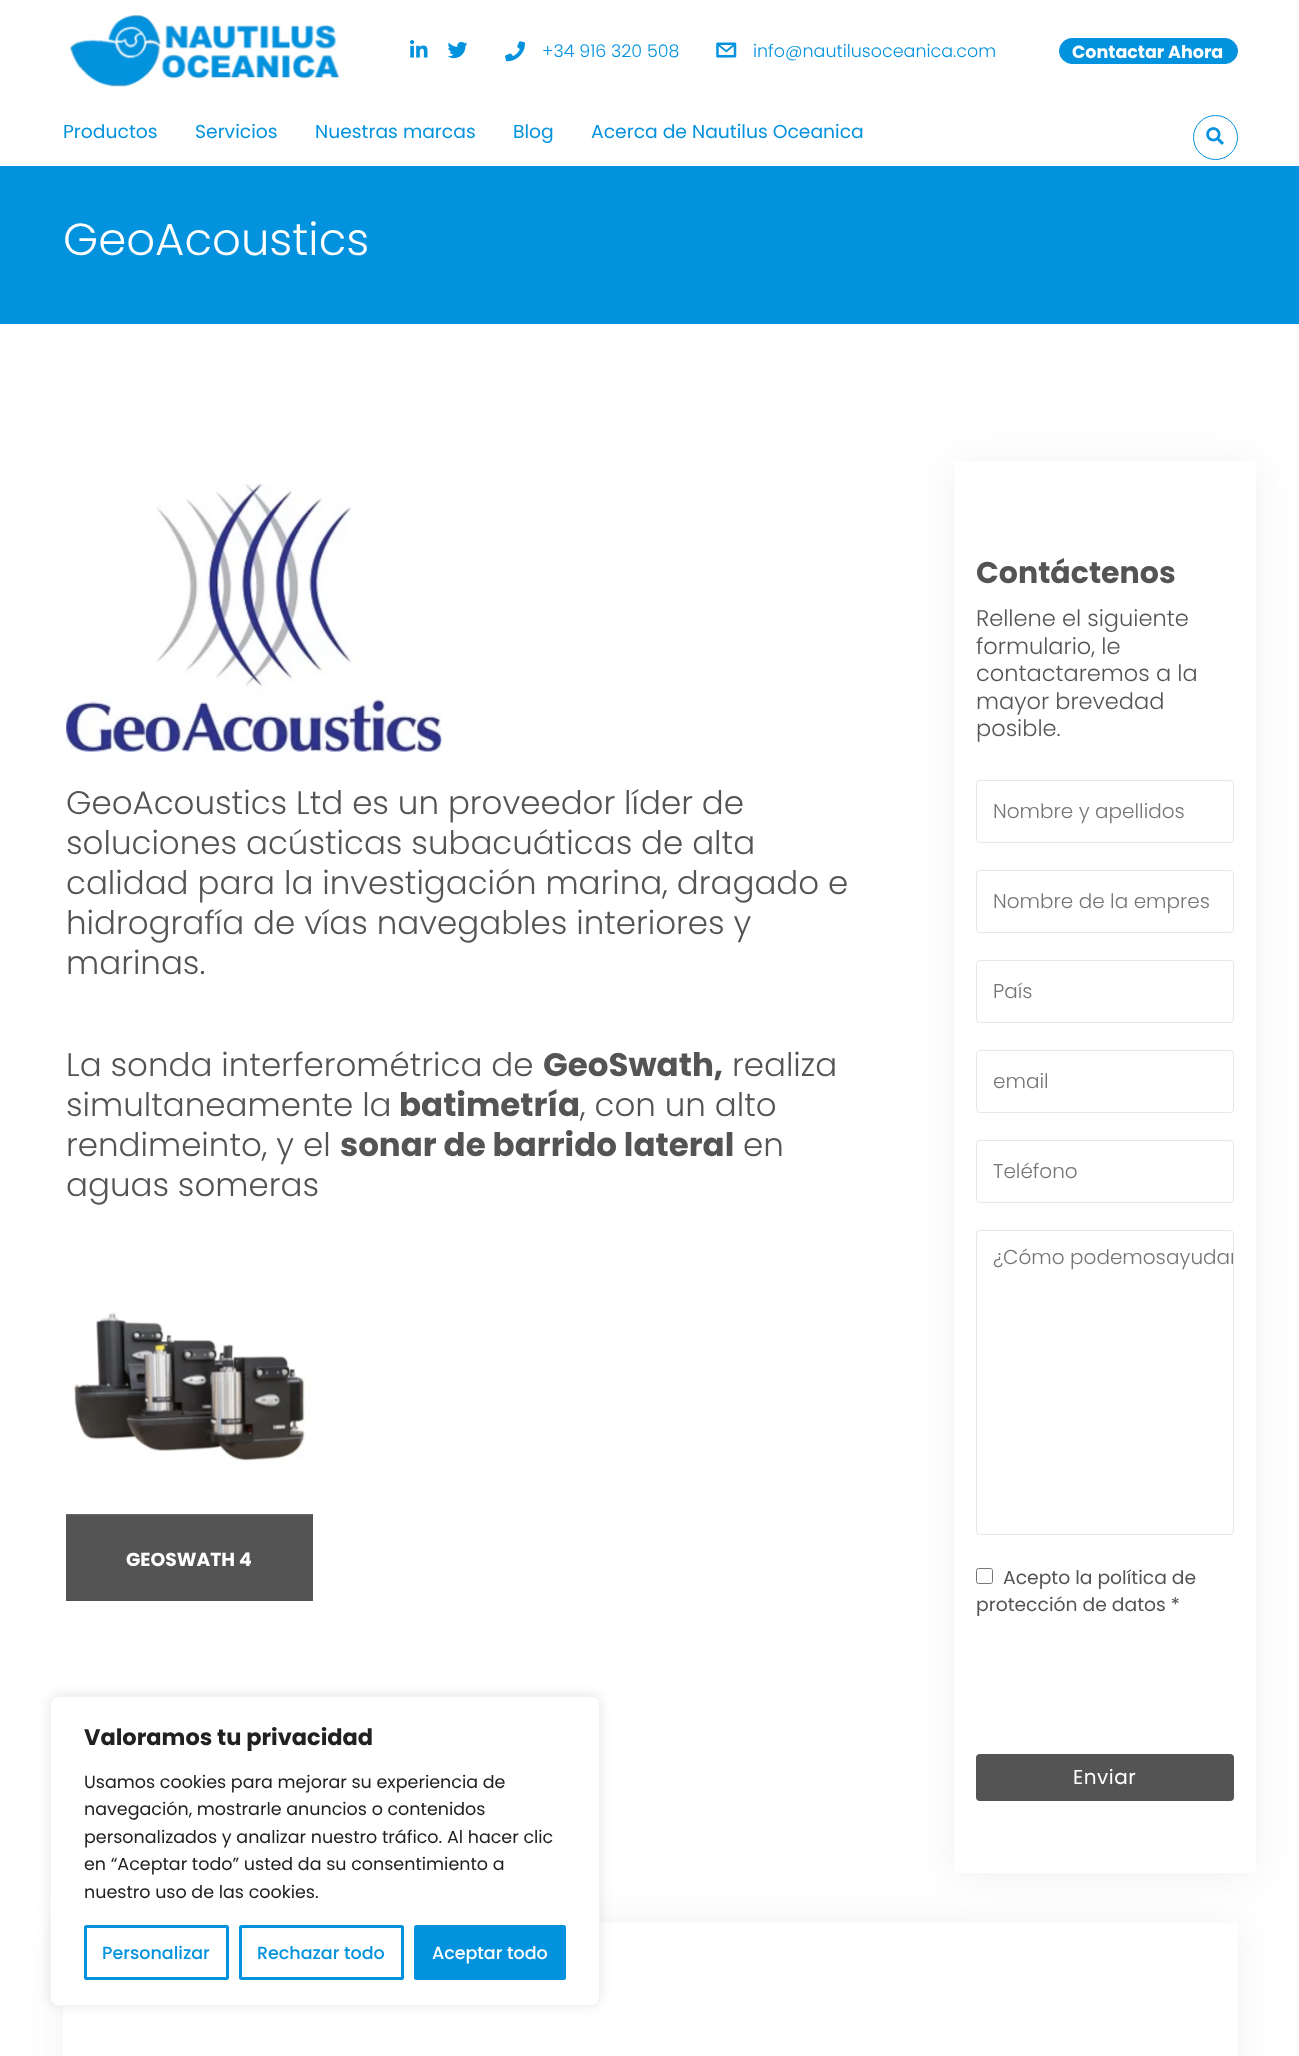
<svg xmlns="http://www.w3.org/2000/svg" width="1299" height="2056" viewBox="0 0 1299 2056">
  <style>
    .t1 { font: 300 17.5px Poppins; fill: #0392de; }
    .t2 { font: bold 17.5px Poppins; fill: #fff; }
    .t3 { font: 18.75px Poppins; fill: #0392de; }
    .t4 { font: 300 45px Poppins; fill: #fff; }
    .t5 { font: 300 32.5px Poppins; fill: #555454; }
    .t6 { font: bold 32.5px Poppins; fill: #555454; }
    .t7 { font: bold 18.75px Poppins; fill: #fff; }
    .t8 { font: bold 30px Poppins; fill: #555454; }
    .t9 { font: 300 22.5px Poppins; fill: #555454; }
    .t10 { font: 300 20px Poppins; fill: #757575; }
    .t11 { font: 18.75px Poppins; fill: #555454; }
    .t12 { font: 20px Poppins; letter-spacing: 0.5px; fill: #fff; }
    .t13 { font: bold 22.5px Poppins; fill: #212121; }
    .t14 { font: 17.5px Poppins; fill: #212121; }
    .t15 { font: 500 17.5px Poppins; fill: #0392de; }
    .t16 { font: 500 17.5px Poppins; fill: #fff; }
  </style>
  <defs>
    <clipPath id="clip1"><rect x="978" y="1231" width="255" height="303" rx="2.5"/></clipPath>
  </defs>
  <rect width="100%" height="100%" fill="#fff"/>
  <image x="69" y="15" width="271" height="72" href="images/1.png"/>
  <image x="410" y="40" width="18" height="18" href="images/2.png"/>
  <image x="447" y="41" width="21" height="18" href="images/3.png"/>
  <image x="505" y="41" width="20" height="21" href="images/4.png"/>
  <text x="542" y="57" class="t1">+34 916 320 508</text>
  <image x="716" y="42" width="21" height="16" href="images/5.png"/>
  <text x="753" y="57" class="t1">info@nautilusoceanica.com</text>
  <rect x="1059.5" y="38.5" width="178" height="25" rx="12.5" fill="#0392dd" stroke="#0392dd"/>
  <text x="1072" y="58" class="t2">Contactar Ahora</text>
  <text x="63" y="138" class="t3">Productos</text>
  <text x="195" y="138" class="t3">Servicios</text>
  <text x="315" y="138" class="t3">Nuestras marcas</text>
  <text x="513" y="138" class="t3">Blog</text>
  <text x="591" y="138" class="t3">Acerca de Nautilus Oceanica</text>
  <circle cx="1215.5" cy="137.5" r="22" fill="none" stroke="#0392dd"/>
  <image x="1206" y="127" width="18" height="18" href="images/6.png"/>
  <rect x="0" y="166" width="1299" height="5" fill="#0392de"/>
  <rect x="0" y="171" width="1299" height="153" fill="#0392dd"/>
  <text x="63" y="255" class="t4">GeoAcoustics</text>
  <image x="66" y="483" width="376" height="269" href="images/7.png"/>
  <text x="66" y="814" class="t5">GeoAcoustics Ltd es un proveedor líder de</text>
  <text x="66" y="854" class="t5">soluciones acústicas subacuáticas de alta</text>
  <text x="66" y="894" class="t5">calidad para la investigación marina, dragado e</text>
  <text x="66" y="934" class="t5">hidrografía de vías navegables interiores y</text>
  <text x="66" y="974" class="t5">marinas.</text>
  <text x="66" y="1076" class="t5">La sonda interferométrica de</text>
  <text x="543" y="1076" class="t6">GeoSwath,</text>
  <text x="732" y="1076" class="t5">realiza</text>
  <text x="66" y="1116" class="t5">simultaneamente la</text>
  <text x="399" y="1116" class="t6">batimetría</text>
  <text x="580" y="1116" class="t5">, con un alto</text>
  <text x="66" y="1156" class="t5">rendimeinto, y el</text>
  <text x="340" y="1156" class="t6">sonar de barrido lateral</text>
  <text x="743" y="1156" class="t5">en</text>
  <text x="66" y="1196" class="t5">aguas someras</text>
  <rect x="66" y="1514" width="247" height="87" fill="#555454"/>
  <image x="66" y="1312" width="247" height="203" href="images/8.png"/>
  <text x="126" y="1566" class="t7">GEOSWATH 4</text>
  <rect x="63" y="1925" width="1175" height="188" fill="#9797a326" filter="blur(19px)"/>
  <rect x="63" y="1923" width="1175" height="133" fill="#fff"/>
  <rect x="954" y="464" width="302" height="1411" fill="#9797a326" filter="blur(19px)"/>
  <rect x="954" y="461" width="302" height="1412" fill="#fff"/>
  <text x="976" y="583" class="t8">Contáctenos</text>
  <text x="976" y="626" class="t9">Rellene el siguiente</text>
  <text x="976" y="654" class="t9">formulario, le</text>
  <text x="976" y="681" class="t9">contactaremos a la</text>
  <text x="976" y="709" class="t9">mayor brevedad</text>
  <text x="976" y="736" class="t9">posible.</text>
  <rect x="976.5" y="780.5" width="257" height="62" rx="3.5" fill="none" stroke="#e5e7e8"/>
  <text x="993" y="818" class="t10">Nombre y apellidos</text>
  <rect x="976.5" y="870.5" width="257" height="62" rx="3.5" fill="none" stroke="#e5e7e8"/>
  <text x="993" y="908" class="t10">Nombre de la empres</text>
  <rect x="976.5" y="960.5" width="257" height="62" rx="3.5" fill="none" stroke="#e5e7e8"/>
  <text x="993" y="998" class="t10">País</text>
  <rect x="976.5" y="1050.5" width="257" height="62" rx="3.5" fill="none" stroke="#e5e7e8"/>
  <text x="993" y="1088" class="t10">email</text>
  <rect x="976.5" y="1140.5" width="257" height="62" rx="3.5" fill="none" stroke="#e5e7e8"/>
  <text x="993" y="1178" class="t10">Teléfono</text>
  <rect x="976.5" y="1230.5" width="257" height="304" rx="3.5" fill="none" stroke="#e5e7e8"/>
  <text x="993" y="1264" class="t10">¿Cómo podemos</text>
  <g clip-path="url(#clip1)">
    <text x="1166" y="1264" class="t10">ayudar</text>
  </g>
  <rect x="976.5" y="1568.5" width="16" height="15" rx="2" fill="none" stroke="#767676"/>
  <text x="1003" y="1584" class="t11">Acepto la política de</text>
  <text x="976" y="1611" class="t11">protección de datos *</text>
  <rect x="976" y="1754" width="258" height="47" rx="4" fill="#555454"/>
  <text x="1073" y="1784" class="t12">Enviar</text>
  <rect x="50" y="1695" width="550" height="310" rx="8" fill="#acabab4d" filter="blur(6px)"/>
  <rect x="50.5" y="1696.5" width="549" height="309" rx="7.5" fill="#fff" stroke="#f4f4f4"/>
  <text x="84" y="1745" class="t13">Valoramos tu privacidad</text>
  <text x="84" y="1788" class="t14">Usamos cookies para mejorar su experiencia de</text>
  <text x="84" y="1815" class="t14">navegación, mostrarle anuncios o contenidos</text>
  <text x="84" y="1843" class="t14">personalizados y analizar nuestro tráfico. Al hacer clic</text>
  <text x="84" y="1870" class="t14">en “Aceptar todo” usted da su consentimiento a</text>
  <text x="84" y="1898" class="t14">nuestro uso de las cookies.</text>
  <rect x="85.5" y="1926.5" width="142" height="52" rx="1" fill="none" stroke="#0392de" stroke-width="3"/>
  <text x="102" y="1959" class="t15">Personalizar</text>
  <rect x="240.5" y="1926.5" width="162" height="52" rx="1" fill="none" stroke="#0392de" stroke-width="3"/>
  <text x="257" y="1959" class="t15">Rechazar todo</text>
  <rect x="415.5" y="1926.5" width="149" height="52" rx="1" fill="#0392de" stroke="#0392de" stroke-width="3"/>
  <text x="432" y="1959" class="t16">Aceptar todo</text>
</svg>
